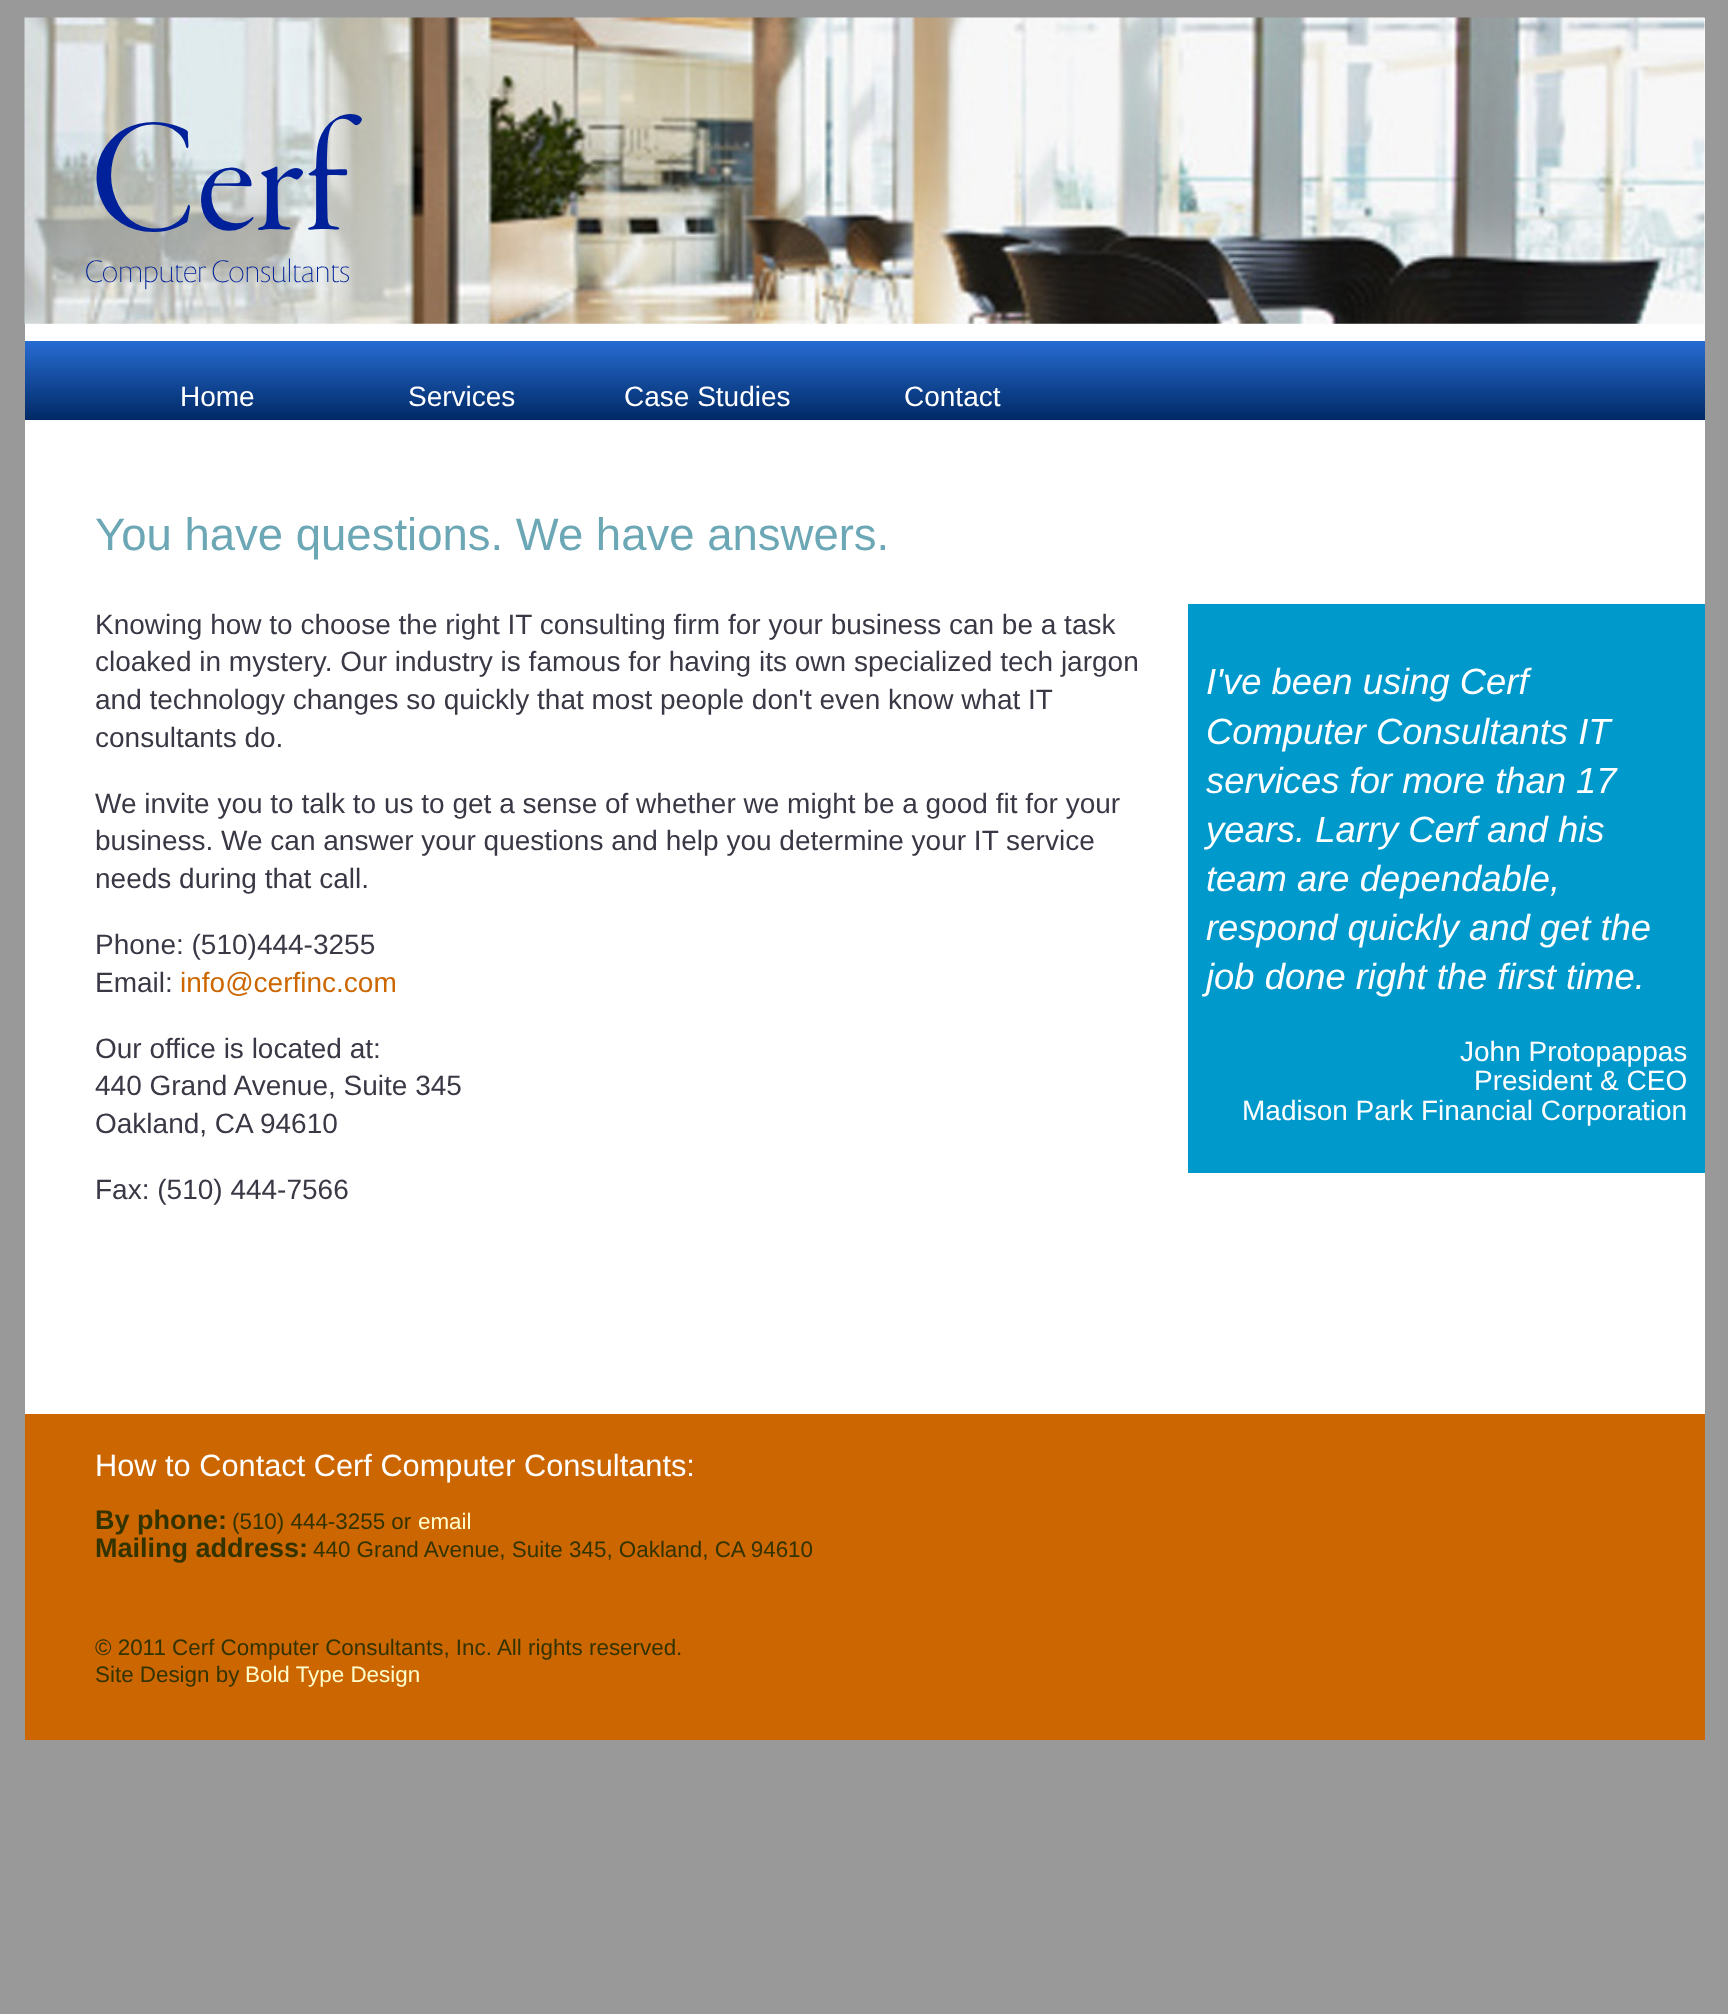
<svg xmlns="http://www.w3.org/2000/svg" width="1728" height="2014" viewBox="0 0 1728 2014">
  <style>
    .t1 { font: 166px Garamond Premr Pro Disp; fill: #002199; }
    .t2 { font: 100 31.5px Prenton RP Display; fill: #002199; }
    .t3 { font: 28px Liberation Sans; fill: #fff; }
    .t4 { font: 45.5px Liberation Sans; fill: #6ca7b6; }
    .t5 { font: 28px Liberation Sans; fill: #3a3845; }
    .t6 { font: 28px Liberation Sans; fill: #c60; }
    .t7 { font: italic 36.4px Liberation Sans; fill: #fff; }
    .t8 { font: 30.75px Liberation Sans; fill: #fff; }
    .t9 { font: bold 27px Liberation Sans; fill: #330; }
    .t10 { font: 22.4px Liberation Sans; fill: #330; }
    .t11 { font: 22.4px Liberation Sans; fill: #ffc; }
  </style>
  <defs>
    <linearGradient id="g1" gradientUnits="userSpaceOnUse" x1="25" y1="341" x2="25" y2="420"><stop offset="0" stop-color="#276cd3"/><stop offset="1" stop-color="#002965"/></linearGradient>
  </defs>
  <rect width="100%" height="100%" fill="#999"/>
  <rect x="25" y="18" width="1680" height="1396" fill="#fff"/>
  <image x="24" y="17" width="1681" height="307" href="images/1.png"/>
  <text x="89" y="229" class="t1">Cerf</text>
  <text x="85" y="282" class="t2">Computer Consultants</text>
  <rect x="25" y="341" width="1680" height="79" fill="url(#g1)"/>
  <text x="180" y="406" class="t3">Home</text>
  <text x="408" y="406" class="t3">Services</text>
  <text x="624" y="406" class="t3">Case Studies</text>
  <text x="904" y="406" class="t3">Contact</text>
  <text x="95" y="550" class="t4">You have questions. We have answers.</text>
  <text x="95" y="634" class="t5">Knowing how to choose the right IT consulting firm for your business can be a task</text>
  <text x="95" y="671" class="t5">cloaked in mystery. Our industry is famous for having its own specialized tech jargon</text>
  <text x="95" y="709" class="t5">and technology changes so quickly that most people don't even know what IT</text>
  <text x="95" y="747" class="t5">consultants do.</text>
  <text x="95" y="813" class="t5">We invite you to talk to us to get a sense of whether we might be a good fit for your</text>
  <text x="95" y="850" class="t5">business. We can answer your questions and help you determine your IT service</text>
  <text x="95" y="888" class="t5">needs during that call.</text>
  <text x="95" y="954" class="t5">Phone: (510)444-3255</text>
  <text x="95" y="992" class="t5">Email:</text>
  <text x="180" y="992" class="t6">info@cerfinc.com</text>
  <text x="95" y="1058" class="t5">Our office is located at:</text>
  <text x="95" y="1095" class="t5">440 Grand Avenue, Suite 345</text>
  <text x="95" y="1133" class="t5">Oakland, CA 94610</text>
  <text x="95" y="1199" class="t5">Fax: (510) 444-7566</text>
  <rect x="1188" y="604" width="517" height="569" fill="#09c"/>
  <text x="1206" y="694" class="t7">I've been using Cerf</text>
  <text x="1206" y="744" class="t7">Computer Consultants IT</text>
  <text x="1206" y="793" class="t7">services for more than 17</text>
  <text x="1206" y="842" class="t7">years. Larry Cerf and his</text>
  <text x="1206" y="891" class="t7">team are dependable,</text>
  <text x="1206" y="940" class="t7">respond quickly and get the</text>
  <text x="1206" y="989" class="t7">job done right the first time.</text>
  <text x="1460" y="1061" class="t3">John Protopappas</text>
  <text x="1474" y="1090" class="t3">President &amp; CEO</text>
  <text x="1242" y="1120" class="t3">Madison Park Financial Corporation</text>
  <rect x="25" y="1414" width="1680" height="326" fill="#c60"/>
  <text x="95" y="1476" class="t8">How to Contact Cerf Computer Consultants:</text>
  <text x="95" y="1529" class="t9">By phone:</text>
  <text x="232" y="1529" class="t10">(510) 444-3255 or</text>
  <text x="418" y="1529" class="t11">email</text>
  <text x="95" y="1557" class="t9">Mailing address:</text>
  <text x="313" y="1557" class="t10">440 Grand Avenue, Suite 345, Oakland, CA 94610</text>
  <text x="95" y="1655" class="t10">© 2011 Cerf Computer Consultants, Inc. All rights reserved.</text>
  <text x="95" y="1682" class="t10">Site Design by</text>
  <text x="245" y="1682" class="t11">Bold Type Design</text>
</svg>
